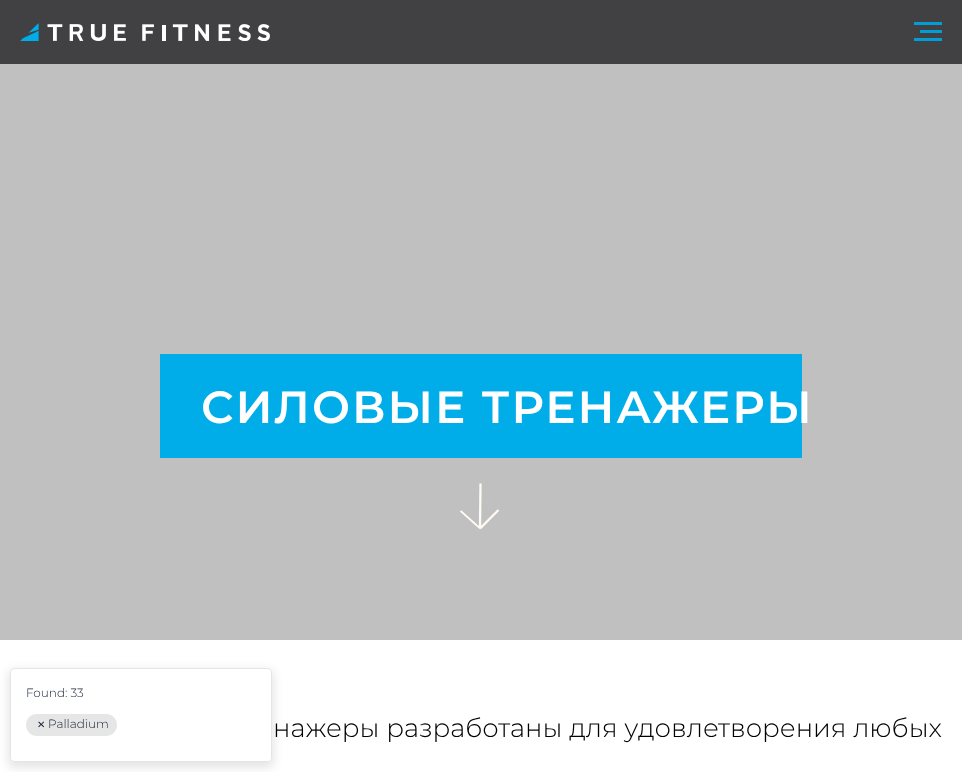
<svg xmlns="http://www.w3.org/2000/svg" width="962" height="772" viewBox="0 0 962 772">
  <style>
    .t1 { font: 600 45px Montserrat; letter-spacing: 2px; fill: #fff; }
    .t2 { font: 300 12px Montserrat; fill: #131f2e; }
    .t3 { font: 10px DejaVu Sans; fill: #131f2e; }
    .t4 { font: 300 26px Montserrat; fill: #000; }
  </style>
  <defs>
    <clipPath id="clip1"><path d="M507.5 505L483 532.5L455.5 508L480 480.5Z"/></clipPath>
    <clipPath id="clip2"><path d="M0 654H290V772H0ZM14 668H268C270 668 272 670 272 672V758C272 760 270 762 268 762H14C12 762 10 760 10 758V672C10 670 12 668 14 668Z" clip-rule="evenodd"/></clipPath>
  </defs>
  <rect width="100%" height="100%" fill="#fff"/>
  <rect x="0" y="0" width="962" height="64" fill="#414042"/>
  <image x="20" y="23" width="250" height="18" href="images/1.png"/>
  <rect x="914" y="22" width="28" height="3" fill="#009dd6"/>
  <rect x="920" y="30" width="22" height="3" fill="#009dd6"/>
  <rect x="914" y="38" width="28" height="3" fill="#009dd6"/>
  <rect x="0" y="64" width="962" height="576" fill="#c0c0c0"/>
  <rect x="160" y="354" width="642" height="104" fill="#00ade8"/>
  <text x="201" y="423" class="t1">СИЛОВЫЕ ТРЕНАЖЕРЫ</text>
  <g clip-path="url(#clip1)">
    <g clip-path="url(#clip1)">
      <path d="M498.5 510L480 528.5M480 528.5L460.5 511M480 528.5L480.5 483.5" fill="none" stroke="#fffaf4" stroke-width="2.3"/>
    </g>
  </g>
  <g clip-path="url(#clip2)">
    <rect x="8" y="670" width="266" height="98" rx="6" fill="#0000001a" filter="blur(5px)"/>
  </g>
  <rect x="10" y="668" width="262" height="94" rx="4" fill="#fffffff0"/>
  <rect x="10.5" y="668.5" width="261" height="93" rx="3.5" fill="none" stroke="#0000001a"/>
  <text x="26" y="697" class="t2">Found: 33</text>
  <rect x="26" y="714" width="91" height="22" rx="11" fill="#82828233"/>
  <text x="37" y="728" class="t3">✕</text>
  <text x="48" y="728" class="t2">Palladium</text>
  <text x="273" y="737" class="t4">нажеры разработаны для удовлетворения любых</text>
</svg>
